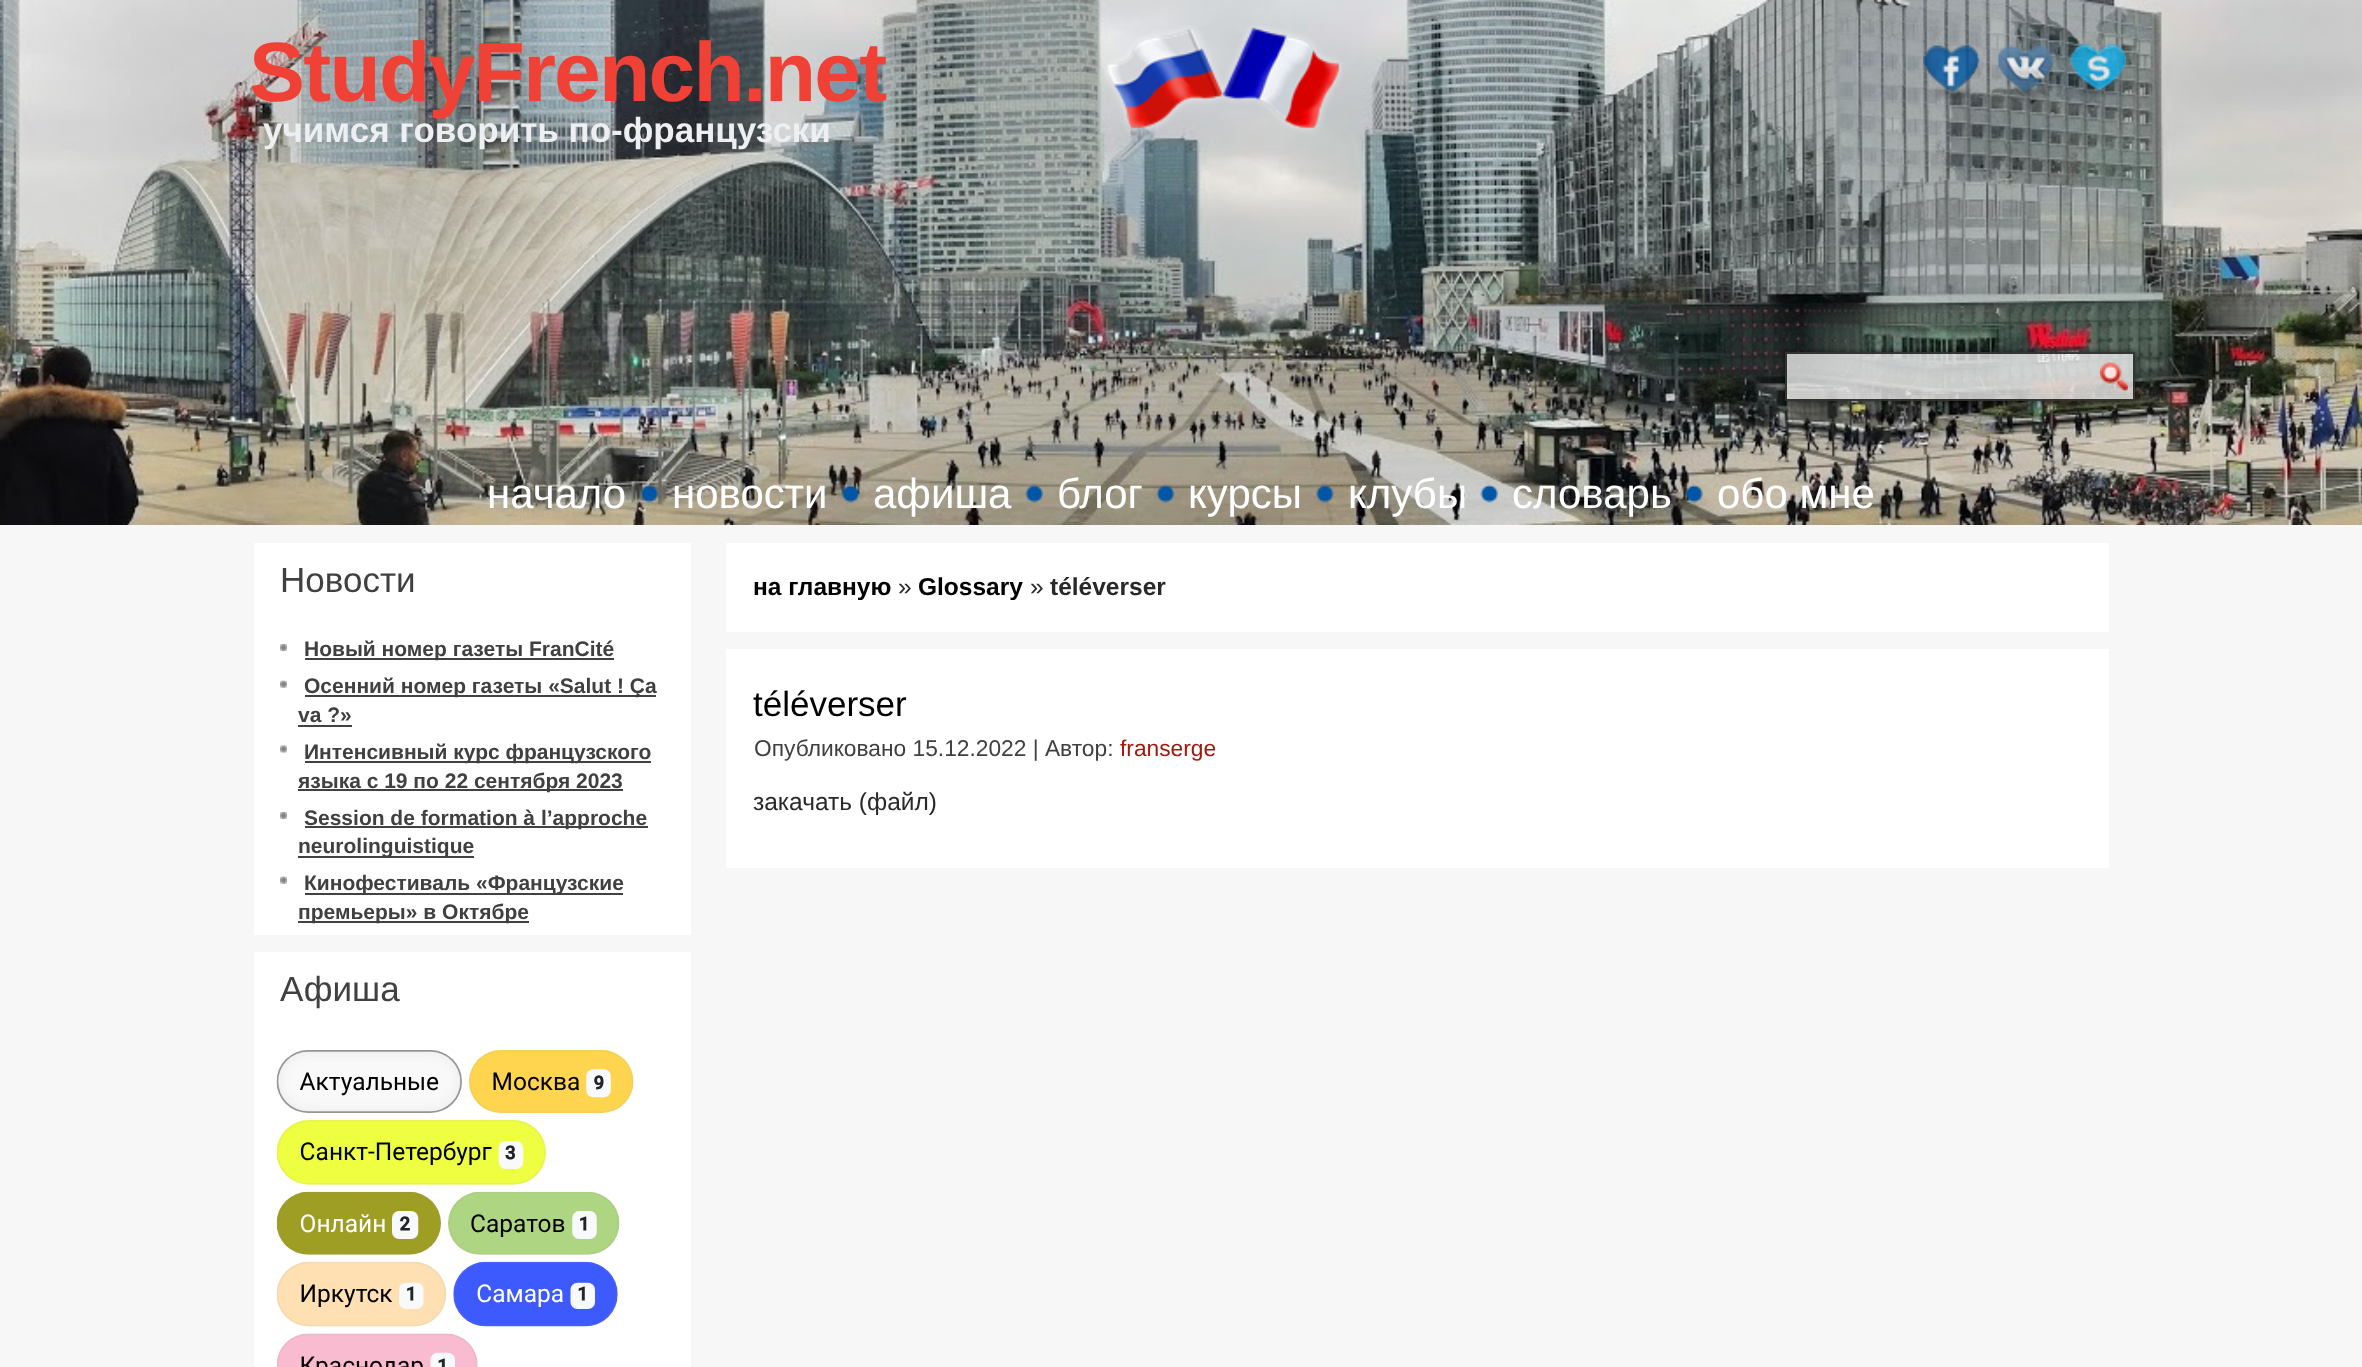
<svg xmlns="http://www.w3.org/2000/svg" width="2362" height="1367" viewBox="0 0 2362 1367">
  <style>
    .t1 { font: bold 84px Liberation Sans; letter-spacing: -1.75px; fill: #ef4135; }
    .t2 { font: bold 35px Liberation Sans; fill: #edeff2; }
    .t3 { font: 42px Liberation Sans; fill: #fff; }
    .t4 { font: 35px Liberation Sans; fill: #404040; }
    .t5 { font: bold 21px Liberation Sans; fill: #404040; }
    .t6 { font: bold 24.5px Liberation Sans; fill: #000; }
    .t7 { font: 24.5px Liberation Sans; fill: #292929; }
    .t8 { font: bold 24.5px Liberation Sans; fill: #292929; }
    .t9 { font: 35px Liberation Sans; fill: #000; }
    .t10 { font: 22.75px Liberation Sans; fill: #404040; }
    .t11 { font: 22.75px Liberation Sans; fill: #a5180d; }
  </style>
  <defs>
    <clipPath id="clip1"><path d="M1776 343H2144V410H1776ZM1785 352H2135V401H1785Z" clip-rule="evenodd"/></clipPath>
  </defs>
  <rect width="100%" height="100%" fill="#f7f7f7"/>
  <image x="0" y="0" width="2362" height="525" href="images/1.png"/>
  <text x="249" y="101" class="t1">StudyFrench.net</text>
  <image x="1104" y="25" width="239" height="109" href="images/2.png"/>
  <image x="1923" y="45" width="57" height="54" href="images/3.png"/>
  <image x="1997" y="45" width="56" height="54" href="images/4.png"/>
  <image x="2070" y="43" width="57" height="55" href="images/5.png"/>
  <text x="263" y="142" class="t2">учимся говорить по-французски</text>
  <g clip-path="url(#clip1)">
    <rect x="1783" y="350" width="354" height="53" fill="#0000005e" filter="blur(2px)"/>
  </g>
  <rect x="1785" y="352" width="350" height="49" fill="#fafafabf"/>
  <rect x="1786" y="353" width="348" height="47" fill="none" stroke="#000000bf" stroke-width="2"/>
  <image x="2100" y="362" width="28" height="29" href="images/6.png"/>
  <text x="487" y="508" class="t3">начало</text>
  <image x="640" y="484" width="18" height="19" href="images/7.png"/>
  <text x="672" y="508" class="t3">новости</text>
  <image x="841" y="484" width="19" height="19" href="images/8.png"/>
  <text x="873" y="508" class="t3">афиша</text>
  <image x="1025" y="484" width="18" height="19" href="images/9.png"/>
  <text x="1057" y="508" class="t3">блог</text>
  <image x="1156" y="484" width="19" height="19" href="images/10.png"/>
  <text x="1188" y="508" class="t3">курсы</text>
  <image x="1316" y="484" width="18" height="19" href="images/11.png"/>
  <text x="1348" y="508" class="t3">клубы</text>
  <image x="1480" y="484" width="18" height="19" href="images/12.png"/>
  <text x="1512" y="508" class="t3">словарь</text>
  <image x="1685" y="484" width="18" height="19" href="images/13.png"/>
  <text x="1717" y="508" class="t3">обо мне</text>
  <rect x="254" y="543" width="437" height="392" fill="#fff"/>
  <text x="280" y="592" class="t4">Новости</text>
  <image x="280" y="644" width="7" height="7" href="images/14.png"/>
  <rect x="305" y="658" width="309" height="2" fill="#424242"/>
  <text x="304" y="656" class="t5">Новый номер газеты FranCité</text>
  <image x="280" y="680" width="7" height="8" href="images/15.png"/>
  <rect x="305" y="695" width="351" height="2" fill="#424242"/>
  <text x="304" y="693" class="t5">Осенний номер газеты «Salut ! Ça</text>
  <text x="298" y="722" class="t5">va ?»</text>
  <rect x="298" y="725" width="54" height="2" fill="#424242"/>
  <image x="280" y="745" width="7" height="8" href="images/16.png"/>
  <rect x="305" y="761" width="346" height="2" fill="#424242"/>
  <text x="304" y="759" class="t5">Интенсивный курс французского</text>
  <rect x="298" y="789" width="325" height="2" fill="#424242"/>
  <text x="298" y="788" class="t5">языка с 19 по 22 сентября 2023</text>
  <image x="280" y="812" width="7" height="7" href="images/14.png"/>
  <rect x="305" y="826" width="343" height="2" fill="#424242"/>
  <text x="304" y="825" class="t5">Session de formation à l’approche</text>
  <rect x="298" y="856" width="176" height="2" fill="#424242"/>
  <text x="298" y="853" class="t5">neurolinguistique</text>
  <image x="280" y="876" width="7" height="8" href="images/15.png"/>
  <rect x="305" y="893" width="318" height="2" fill="#424242"/>
  <text x="304" y="890" class="t5">Кинофестиваль «Французские</text>
  <rect x="298" y="921" width="231" height="2" fill="#424242"/>
  <text x="298" y="919" class="t5">премьеры» в Октябре</text>
  <rect x="254" y="952" width="437" height="415" fill="#fff"/>
  <text x="280" y="1001" class="t4">Афиша</text>
  <image x="276" y="1050" width="358" height="317" href="images/17.png"/>
  <rect x="726" y="543" width="1383" height="89" fill="#fff"/>
  <text x="753" y="595" class="t6">на главную</text>
  <text x="898" y="595" class="t7">»</text>
  <text x="918" y="595" class="t6">Glossary</text>
  <text x="1030" y="595" class="t7">»</text>
  <text x="1050" y="595" class="t8">téléverser</text>
  <rect x="726" y="649" width="1383" height="219" fill="#fff"/>
  <text x="753" y="716" class="t9">téléverser</text>
  <text x="754" y="756" class="t10">Опубликовано 15.12.2022 | Автор:</text>
  <text x="1120" y="756" class="t11">franserge</text>
  <text x="753" y="810" class="t7">закачать (файл)</text>
</svg>
